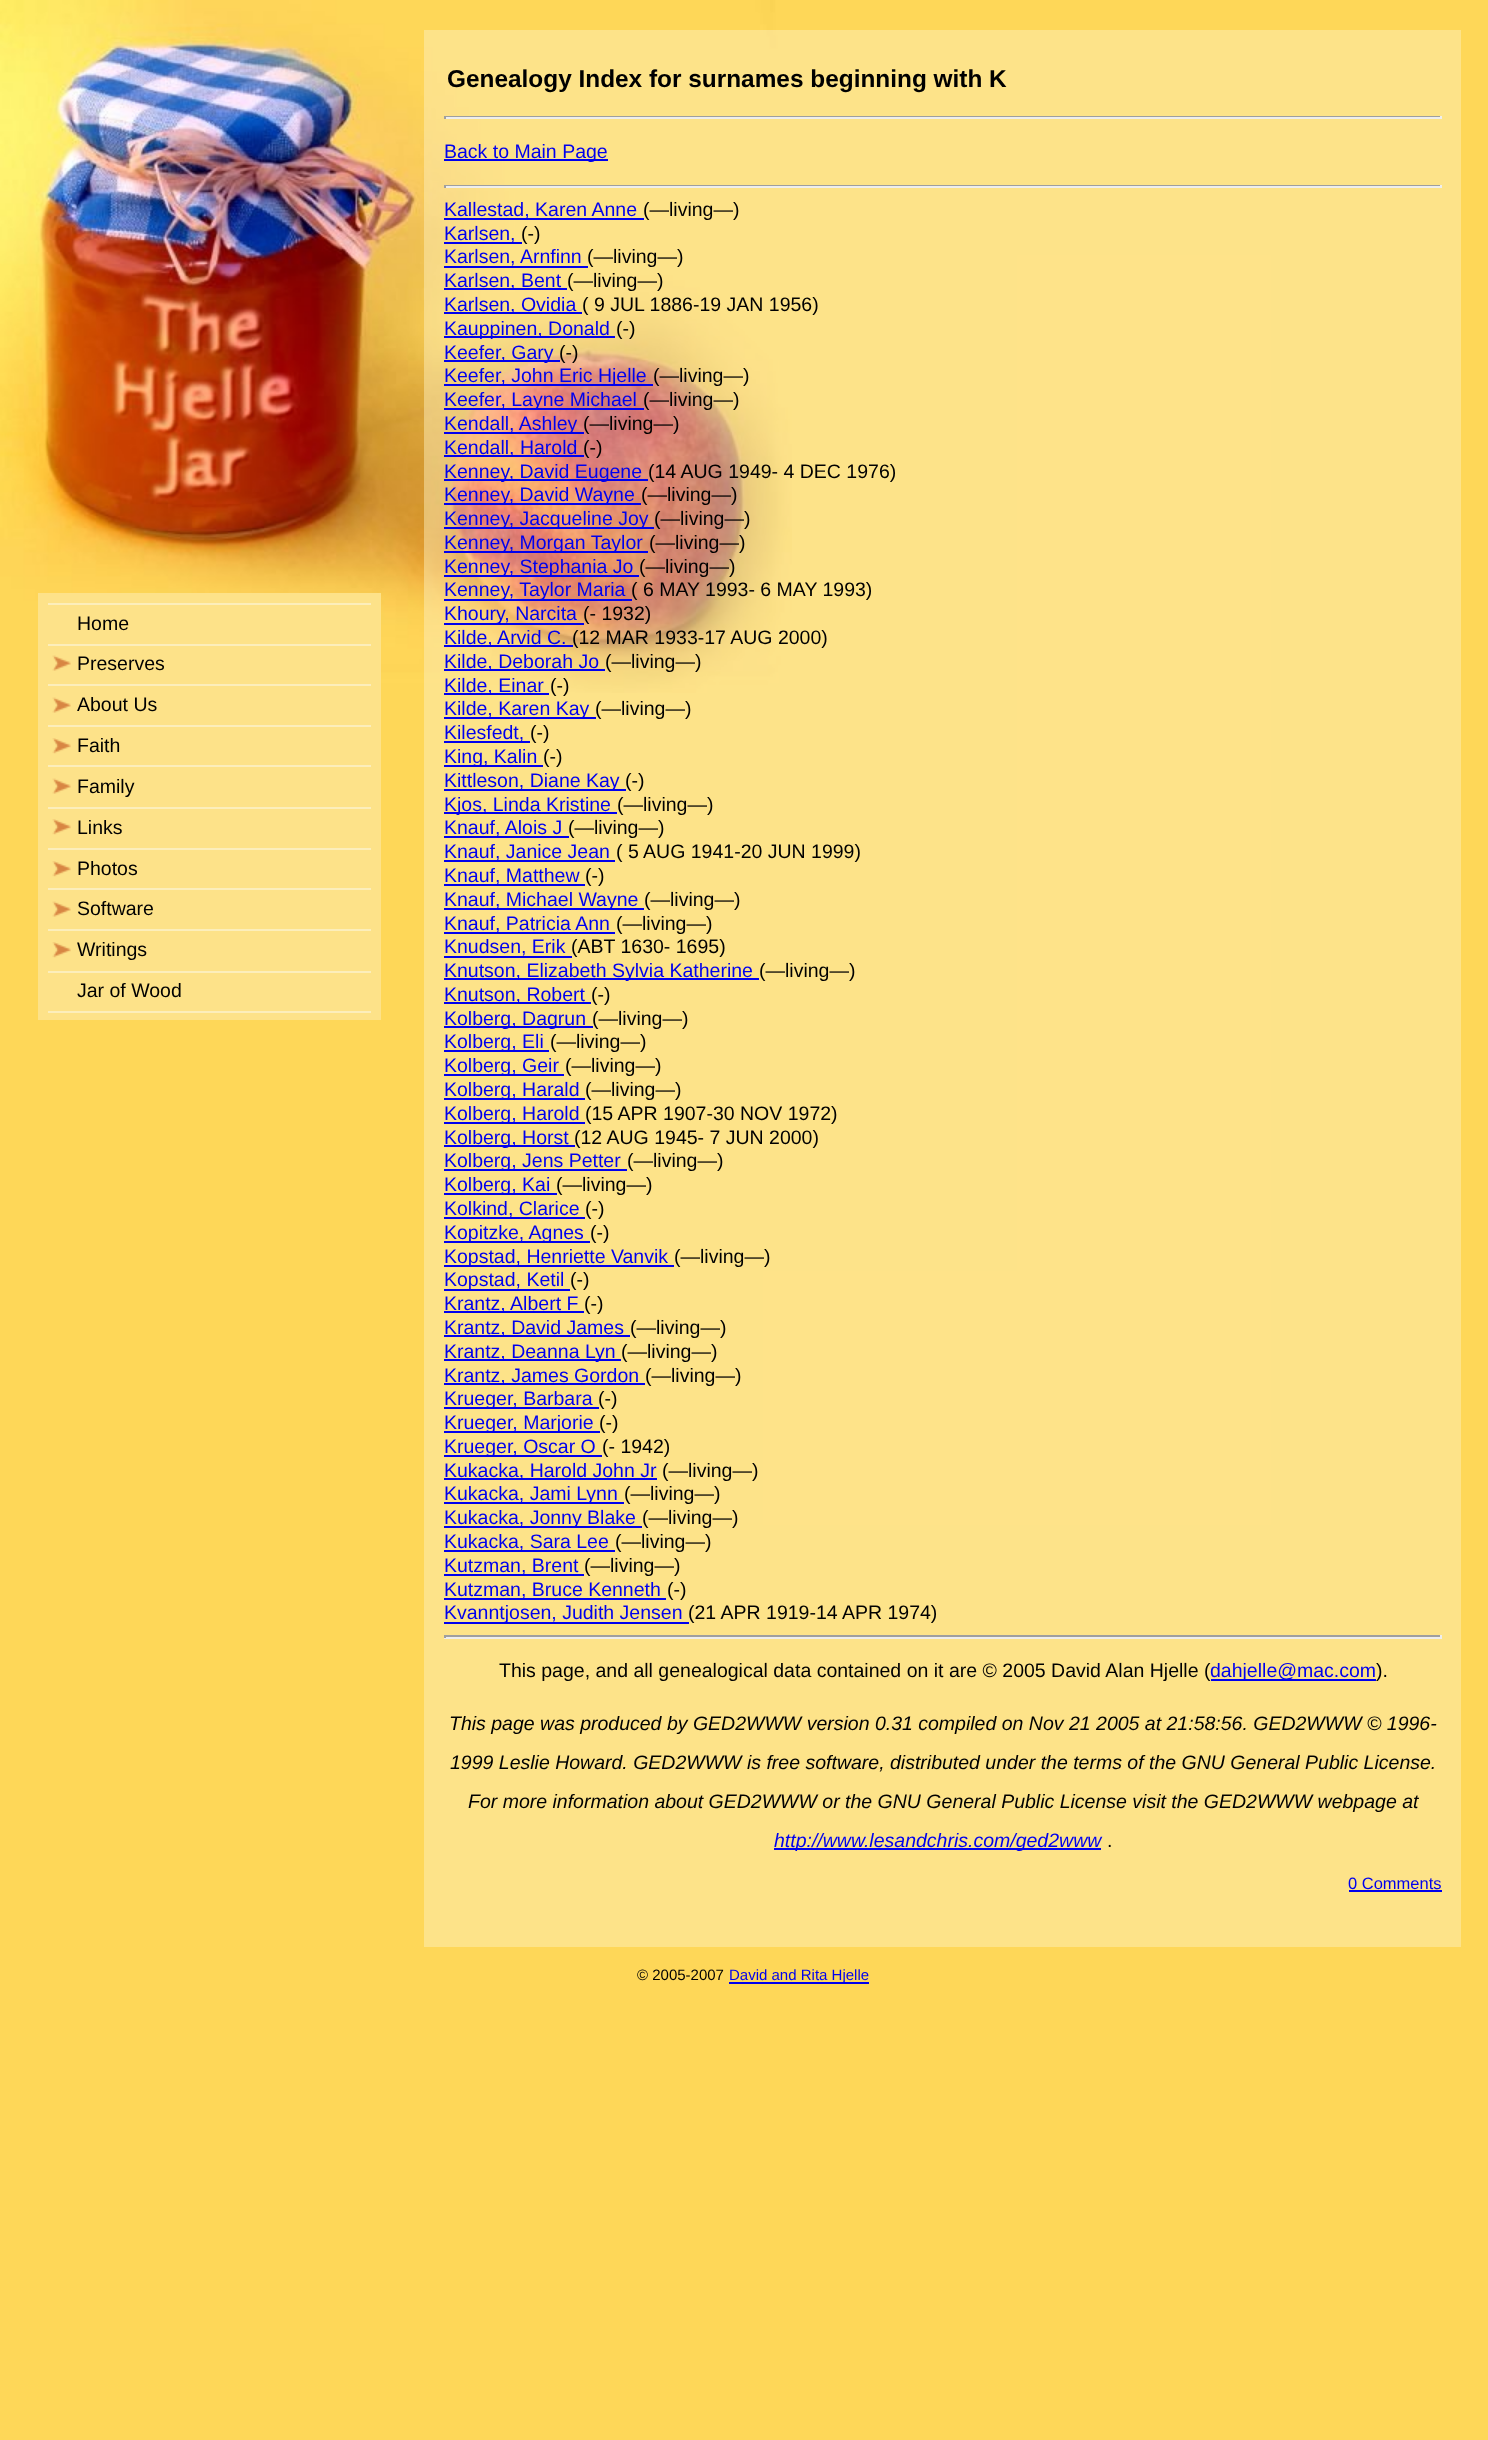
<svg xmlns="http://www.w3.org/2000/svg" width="1488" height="2440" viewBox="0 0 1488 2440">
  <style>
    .t1 { font: 19.5px Liberation Sans; fill: #000; }
    .t2 { font: bold 24.4px Liberation Sans; fill: #000; }
    .t3 { font: 19.5px Liberation Sans; fill: #00e; }
    .t4 { font: italic 19.5px Liberation Sans; fill: #000; }
    .t5 { font: italic 19.5px Liberation Sans; fill: #00e; }
    .t6 { font: 16.5px Liberation Sans; fill: #00e; }
    .t7 { font: 15px Liberation Sans; fill: #000; }
    .t8 { font: 15px Liberation Sans; fill: #00e; }
  </style>
  <rect width="100%" height="100%" fill="#fed758"/>
  <image x="0" y="0" width="792" height="693" href="images/1.png"/>
  <rect x="38" y="593" width="343" height="427" fill="#fde289"/>
  <rect x="48" y="603" width="323" height="2" fill="#fceebb"/>
  <rect x="48" y="644" width="323" height="2" fill="#fceebb"/>
  <text x="77" y="630" class="t1">Home</text>
  <rect x="48" y="684" width="323" height="2" fill="#fceebb"/>
  <image x="52" y="655" width="19" height="16" href="images/2.png"/>
  <text x="77" y="670" class="t1">Preserves</text>
  <rect x="48" y="725" width="323" height="2" fill="#fceebb"/>
  <image x="52" y="697" width="19" height="16" href="images/2.png"/>
  <text x="77" y="711" class="t1">About Us</text>
  <rect x="48" y="765" width="323" height="2" fill="#fceebb"/>
  <image x="52" y="738" width="19" height="16" href="images/3.png"/>
  <text x="77" y="752" class="t1">Faith</text>
  <rect x="48" y="807" width="323" height="2" fill="#fceebb"/>
  <image x="52" y="778" width="19" height="16" href="images/2.png"/>
  <text x="77" y="793" class="t1">Family</text>
  <rect x="48" y="848" width="323" height="2" fill="#fceebb"/>
  <image x="52" y="819" width="19" height="16" href="images/3.png"/>
  <text x="77" y="834" class="t1">Links</text>
  <rect x="48" y="888" width="323" height="2" fill="#fceebb"/>
  <image x="52" y="861" width="19" height="16" href="images/3.png"/>
  <text x="77" y="875" class="t1">Photos</text>
  <rect x="48" y="929" width="323" height="2" fill="#fceebb"/>
  <image x="52" y="901" width="19" height="16" href="images/2.png"/>
  <text x="77" y="915" class="t1">Software</text>
  <rect x="48" y="971" width="323" height="2" fill="#fceebb"/>
  <image x="52" y="942" width="19" height="16" href="images/3.png"/>
  <text x="77" y="956" class="t1">Writings</text>
  <rect x="48" y="1011" width="323" height="2" fill="#fceebb"/>
  <text x="77" y="997" class="t1">Jar of Wood</text>
  <rect x="424" y="30" width="1037" height="1917" fill="#fdefbc7d"/>
  <text x="447" y="87" class="t2">Genealogy Index for surnames beginning with K</text>
  <rect x="444" y="116" width="998" height="1" fill="#9f9f9f"/>
  <rect x="1440" y="116" width="2" height="3" fill="#eee"/>
  <rect x="444" y="117" width="998" height="2" fill="#eee"/>
  <rect x="444" y="116" width="2" height="3" fill="#9f9f9f"/>
  <rect x="444" y="159" width="164" height="2" fill="#00e"/>
  <text x="444" y="158" class="t3">Back to Main Page</text>
  <rect x="444" y="185" width="998" height="1" fill="#9f9f9f"/>
  <rect x="1440" y="185" width="2" height="3" fill="#eee"/>
  <rect x="444" y="186" width="998" height="2" fill="#eee"/>
  <rect x="444" y="185" width="2" height="3" fill="#9f9f9f"/>
  <rect x="444" y="218" width="200" height="2" fill="#00e"/>
  <text x="444" y="216" class="t3">Kallestad, Karen Anne</text>
  <text x="643" y="216" class="t1">(—living—)</text>
  <rect x="444" y="242" width="78" height="2" fill="#00e"/>
  <text x="444" y="240" class="t3">Karlsen,</text>
  <text x="521" y="240" class="t1">(-)</text>
  <text x="444" y="263" class="t3">Karlsen, Arnfinn</text>
  <rect x="444" y="266" width="144" height="2" fill="#00e"/>
  <text x="587" y="263" class="t1">(—living—)</text>
  <rect x="444" y="288" width="123" height="2" fill="#00e"/>
  <text x="444" y="287" class="t3">Karlsen, Bent</text>
  <text x="567" y="287" class="t1">(—living—)</text>
  <rect x="444" y="312" width="138" height="2" fill="#00e"/>
  <text x="444" y="311" class="t3">Karlsen, Ovidia</text>
  <text x="582" y="311" class="t1">( 9 JUL 1886-19 JAN 1956)</text>
  <rect x="444" y="336" width="171" height="2" fill="#00e"/>
  <text x="444" y="335" class="t3">Kauppinen, Donald</text>
  <text x="616" y="335" class="t1">(-)</text>
  <rect x="444" y="360" width="116" height="2" fill="#00e"/>
  <text x="444" y="359" class="t3">Keefer, Gary</text>
  <text x="559" y="359" class="t1">(-)</text>
  <rect x="444" y="384" width="209" height="2" fill="#00e"/>
  <text x="444" y="382" class="t3">Keefer, John Eric Hjelle</text>
  <text x="653" y="382" class="t1">(—living—)</text>
  <rect x="444" y="408" width="200" height="2" fill="#00e"/>
  <text x="444" y="406" class="t3">Keefer, Layne Michael</text>
  <text x="643" y="406" class="t1">(—living—)</text>
  <rect x="444" y="432" width="140" height="2" fill="#00e"/>
  <text x="444" y="430" class="t3">Kendall, Ashley</text>
  <text x="583" y="430" class="t1">(—living—)</text>
  <rect x="444" y="455" width="140" height="2" fill="#00e"/>
  <text x="444" y="454" class="t3">Kendall, Harold</text>
  <text x="583" y="454" class="t1">(-)</text>
  <rect x="444" y="479" width="204" height="2" fill="#00e"/>
  <text x="444" y="478" class="t3">Kenney, David Eugene</text>
  <text x="648" y="478" class="t1">(14 AUG 1949- 4 DEC 1976)</text>
  <rect x="444" y="503" width="197" height="2" fill="#00e"/>
  <text x="444" y="501" class="t3">Kenney, David Wayne</text>
  <text x="641" y="501" class="t1">(—living—)</text>
  <rect x="444" y="527" width="210" height="2" fill="#00e"/>
  <text x="444" y="525" class="t3">Kenney, Jacqueline Joy</text>
  <text x="654" y="525" class="t1">(—living—)</text>
  <rect x="444" y="551" width="204" height="2" fill="#00e"/>
  <text x="444" y="549" class="t3">Kenney, Morgan Taylor</text>
  <text x="649" y="549" class="t1">(—living—)</text>
  <rect x="444" y="575" width="195" height="2" fill="#00e"/>
  <text x="444" y="573" class="t3">Kenney, Stephania Jo</text>
  <text x="639" y="573" class="t1">(—living—)</text>
  <rect x="444" y="599" width="188" height="2" fill="#00e"/>
  <text x="444" y="596" class="t3">Kenney, Taylor Maria</text>
  <text x="631" y="596" class="t1">( 6 MAY 1993- 6 MAY 1993)</text>
  <rect x="444" y="623" width="140" height="2" fill="#00e"/>
  <text x="444" y="620" class="t3">Khoury, Narcita</text>
  <text x="583" y="620" class="t1">(- 1932)</text>
  <rect x="444" y="645" width="129" height="2" fill="#00e"/>
  <text x="444" y="644" class="t3">Kilde, Arvid C.</text>
  <text x="572" y="644" class="t1">(12 MAR 1933-17 AUG 2000)</text>
  <rect x="444" y="669" width="161" height="2" fill="#00e"/>
  <text x="444" y="668" class="t3">Kilde, Deborah Jo</text>
  <text x="605" y="668" class="t1">(—living—)</text>
  <rect x="444" y="693" width="105" height="2" fill="#00e"/>
  <text x="444" y="692" class="t3">Kilde, Einar</text>
  <text x="550" y="692" class="t1">(-)</text>
  <rect x="444" y="717" width="152" height="2" fill="#00e"/>
  <text x="444" y="715" class="t3">Kilde, Karen Kay</text>
  <text x="595" y="715" class="t1">(—living—)</text>
  <rect x="444" y="741" width="86" height="2" fill="#00e"/>
  <text x="444" y="739" class="t3">Kilesfedt,</text>
  <text x="530" y="739" class="t1">(-)</text>
  <rect x="444" y="765" width="99" height="2" fill="#00e"/>
  <text x="444" y="763" class="t3">King, Kalin</text>
  <text x="543" y="763" class="t1">(-)</text>
  <rect x="444" y="789" width="182" height="2" fill="#00e"/>
  <text x="444" y="787" class="t3">Kittleson, Diane Kay</text>
  <text x="625" y="787" class="t1">(-)</text>
  <rect x="444" y="812" width="173" height="2" fill="#00e"/>
  <text x="444" y="811" class="t3">Kjos, Linda Kristine</text>
  <text x="617" y="811" class="t1">(—living—)</text>
  <rect x="444" y="836" width="125" height="2" fill="#00e"/>
  <text x="444" y="834" class="t3">Knauf, Alois J</text>
  <text x="568" y="834" class="t1">(—living—)</text>
  <rect x="444" y="860" width="171" height="2" fill="#00e"/>
  <text x="444" y="858" class="t3">Knauf, Janice Jean</text>
  <text x="616" y="858" class="t1">( 5 AUG 1941-20 JUN 1999)</text>
  <rect x="444" y="884" width="141" height="2" fill="#00e"/>
  <text x="444" y="882" class="t3">Knauf, Matthew</text>
  <text x="585" y="882" class="t1">(-)</text>
  <rect x="444" y="908" width="200" height="2" fill="#00e"/>
  <text x="444" y="906" class="t3">Knauf, Michael Wayne</text>
  <text x="644" y="906" class="t1">(—living—)</text>
  <rect x="444" y="932" width="171" height="2" fill="#00e"/>
  <text x="444" y="930" class="t3">Knauf, Patricia Ann</text>
  <text x="616" y="930" class="t1">(—living—)</text>
  <text x="444" y="953" class="t3">Knudsen, Erik</text>
  <rect x="444" y="956" width="128" height="2" fill="#00e"/>
  <text x="571" y="953" class="t1">(ABT 1630- 1695)</text>
  <rect x="444" y="978" width="315" height="2" fill="#00e"/>
  <text x="444" y="977" class="t3">Knutson, Elizabeth Sylvia Katherine</text>
  <text x="759" y="977" class="t1">(—living—)</text>
  <rect x="444" y="1002" width="147" height="2" fill="#00e"/>
  <text x="444" y="1001" class="t3">Knutson, Robert</text>
  <text x="591" y="1001" class="t1">(-)</text>
  <rect x="444" y="1026" width="149" height="2" fill="#00e"/>
  <text x="444" y="1025" class="t3">Kolberg, Dagrun</text>
  <text x="592" y="1025" class="t1">(—living—)</text>
  <rect x="444" y="1050" width="105" height="2" fill="#00e"/>
  <text x="444" y="1048" class="t3">Kolberg, Eli</text>
  <text x="550" y="1048" class="t1">(—living—)</text>
  <rect x="444" y="1074" width="120" height="2" fill="#00e"/>
  <text x="444" y="1072" class="t3">Kolberg, Geir</text>
  <text x="565" y="1072" class="t1">(—living—)</text>
  <rect x="444" y="1098" width="141" height="2" fill="#00e"/>
  <text x="444" y="1096" class="t3">Kolberg, Harald</text>
  <text x="585" y="1096" class="t1">(—living—)</text>
  <rect x="444" y="1122" width="141" height="2" fill="#00e"/>
  <text x="444" y="1120" class="t3">Kolberg, Harold</text>
  <text x="585" y="1120" class="t1">(15 APR 1907-30 NOV 1972)</text>
  <rect x="444" y="1145" width="131" height="2" fill="#00e"/>
  <text x="444" y="1144" class="t3">Kolberg, Horst</text>
  <text x="574" y="1144" class="t1">(12 AUG 1945- 7 JUN 2000)</text>
  <rect x="444" y="1169" width="183" height="2" fill="#00e"/>
  <text x="444" y="1167" class="t3">Kolberg, Jens Petter</text>
  <text x="627" y="1167" class="t1">(—living—)</text>
  <rect x="444" y="1193" width="113" height="2" fill="#00e"/>
  <text x="444" y="1191" class="t3">Kolberg, Kai</text>
  <text x="556" y="1191" class="t1">(—living—)</text>
  <rect x="444" y="1217" width="141" height="2" fill="#00e"/>
  <text x="444" y="1215" class="t3">Kolkind, Clarice</text>
  <text x="585" y="1215" class="t1">(-)</text>
  <rect x="444" y="1241" width="146" height="2" fill="#00e"/>
  <text x="444" y="1239" class="t3">Kopitzke, Agnes</text>
  <text x="590" y="1239" class="t1">(-)</text>
  <rect x="444" y="1265" width="230" height="2" fill="#00e"/>
  <text x="444" y="1263" class="t3">Kopstad, Henriette Vanvik</text>
  <text x="674" y="1263" class="t1">(—living—)</text>
  <rect x="444" y="1289" width="126" height="2" fill="#00e"/>
  <text x="444" y="1286" class="t3">Kopstad, Ketil</text>
  <text x="570" y="1286" class="t1">(-)</text>
  <rect x="444" y="1311" width="140" height="2" fill="#00e"/>
  <text x="444" y="1310" class="t3">Krantz, Albert F</text>
  <text x="584" y="1310" class="t1">(-)</text>
  <rect x="444" y="1335" width="186" height="2" fill="#00e"/>
  <text x="444" y="1334" class="t3">Krantz, David James</text>
  <text x="630" y="1334" class="t1">(—living—)</text>
  <rect x="444" y="1359" width="177" height="2" fill="#00e"/>
  <text x="444" y="1358" class="t3">Krantz, Deanna Lyn</text>
  <text x="621" y="1358" class="t1">(—living—)</text>
  <rect x="444" y="1383" width="201" height="2" fill="#00e"/>
  <text x="444" y="1382" class="t3">Krantz, James Gordon</text>
  <text x="645" y="1382" class="t1">(—living—)</text>
  <rect x="444" y="1407" width="155" height="2" fill="#00e"/>
  <text x="444" y="1405" class="t3">Krueger, Barbara</text>
  <text x="598" y="1405" class="t1">(-)</text>
  <rect x="444" y="1431" width="156" height="2" fill="#00e"/>
  <text x="444" y="1429" class="t3">Krueger, Marjorie</text>
  <text x="599" y="1429" class="t1">(-)</text>
  <rect x="444" y="1455" width="158" height="2" fill="#00e"/>
  <text x="444" y="1453" class="t3">Krueger, Oscar O</text>
  <text x="602" y="1453" class="t1">(- 1942)</text>
  <rect x="444" y="1478" width="213" height="2" fill="#00e"/>
  <text x="444" y="1477" class="t3">Kukacka, Harold John Jr</text>
  <text x="662" y="1477" class="t1">(—living—)</text>
  <rect x="444" y="1502" width="180" height="2" fill="#00e"/>
  <text x="444" y="1500" class="t3">Kukacka, Jami Lynn</text>
  <text x="624" y="1500" class="t1">(—living—)</text>
  <rect x="444" y="1526" width="198" height="2" fill="#00e"/>
  <text x="444" y="1524" class="t3">Kukacka, Jonny Blake</text>
  <text x="642" y="1524" class="t1">(—living—)</text>
  <rect x="444" y="1550" width="171" height="2" fill="#00e"/>
  <text x="444" y="1548" class="t3">Kukacka, Sara Lee</text>
  <text x="615" y="1548" class="t1">(—living—)</text>
  <rect x="444" y="1574" width="140" height="2" fill="#00e"/>
  <text x="444" y="1572" class="t3">Kutzman, Brent</text>
  <text x="584" y="1572" class="t1">(—living—)</text>
  <rect x="444" y="1598" width="222" height="2" fill="#00e"/>
  <text x="444" y="1596" class="t3">Kutzman, Bruce Kenneth</text>
  <text x="667" y="1596" class="t1">(-)</text>
  <rect x="444" y="1622" width="245" height="2" fill="#00e"/>
  <text x="444" y="1619" class="t3">Kvanntjosen, Judith Jensen</text>
  <text x="688" y="1619" class="t1">(21 APR 1919-14 APR 1974)</text>
  <rect x="444" y="1635" width="998" height="2" fill="#9f9f9f"/>
  <rect x="1440" y="1635" width="2" height="3" fill="#eee"/>
  <rect x="444" y="1637" width="998" height="2" fill="#eee"/>
  <rect x="444" y="1635" width="2" height="3" fill="#9f9f9f"/>
  <text x="499" y="1677" class="t1">This page, and all genealogical data contained on it are © 2005 David Alan Hjelle (</text>
  <rect x="1211" y="1679" width="165" height="2" fill="#00e"/>
  <text x="1210" y="1677" class="t3">dahjelle@mac.com</text>
  <text x="1376" y="1677" class="t1">).</text>
  <text x="449" y="1730" class="t4">This page was produced by GED2WWW version 0.31 compiled on Nov 21 2005 at 21:58:56. GED2WWW © 1996-</text>
  <text x="450" y="1769" class="t4">1999 Leslie Howard. GED2WWW is free software, distributed under the terms of the GNU General Public License.</text>
  <text x="468" y="1808" class="t4">For more information about GED2WWW or the GNU General Public License visit the GED2WWW webpage at</text>
  <rect x="774" y="1848" width="327" height="2" fill="#00e"/>
  <text x="774" y="1847" class="t5">http://www.lesandchris.com/ged2www</text>
  <text x="1107" y="1847" class="t1">.</text>
  <text x="1348" y="1889" class="t6">0 Comments</text>
  <rect x="1349" y="1890" width="93" height="2" fill="#00e"/>
  <text x="637" y="1980" class="t7">© 2005-2007</text>
  <rect x="729" y="1982" width="140" height="2" fill="#00e"/>
  <text x="729" y="1980" class="t8">David and Rita Hjelle</text>
</svg>
